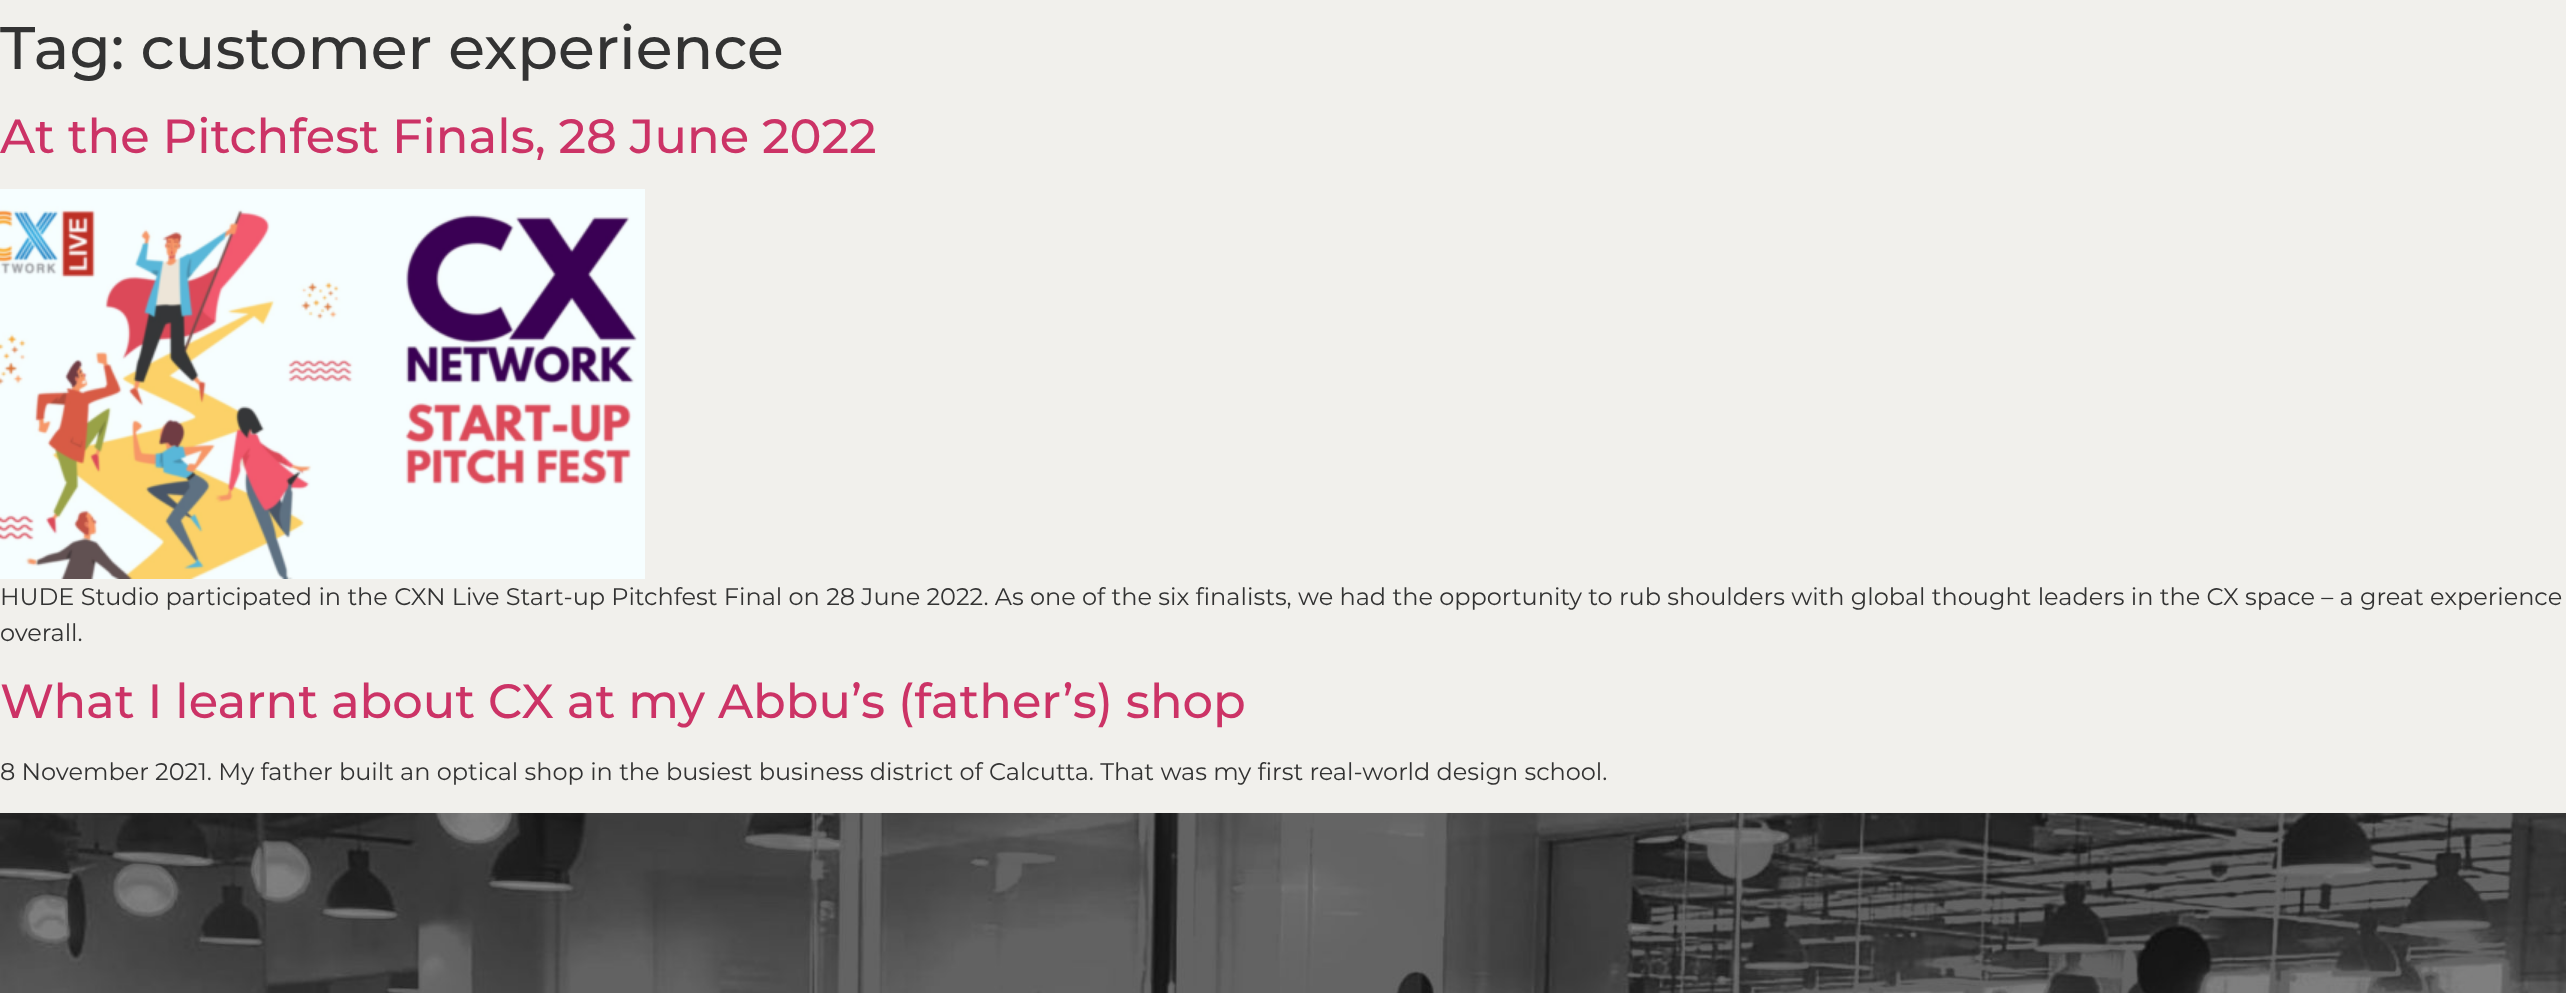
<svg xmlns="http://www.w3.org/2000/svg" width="2566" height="993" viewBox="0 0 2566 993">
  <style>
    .t1 { font: 500 60px Montserrat; fill: #333; }
    .t2 { font: 500 48px Montserrat; fill: #c36; }
    .t3 { font: 24px Montserrat; fill: #333; }
  </style>
  <rect width="100%" height="100%" fill="#f1f0ec"/>
  <text x="0" y="69" class="t1">Tag: customer experience</text>
  <text x="0" y="153" class="t2">At the Pitchfest Finals, 28 June 2022</text>
  <image x="0" y="189" width="645" height="390" href="images/1.png"/>
  <text x="0" y="605" class="t3">HUDE Studio participated in the CXN Live Start-up Pitchfest Final on 28 June 2022. As one of the six finalists, we had the opportunity to rub shoulders with global thought leaders in the CX space – a great experience</text>
  <text x="0" y="641" class="t3">overall.</text>
  <text x="0" y="718" class="t2">What I learnt about CX at my Abbu’s (father’s) shop</text>
  <text x="0" y="780" class="t3">8 November 2021. My father built an optical shop in the busiest business district of Calcutta. That was my first real-world design school.</text>
  <image x="0" y="813" width="2566" height="180" href="images/2.png"/>
</svg>
